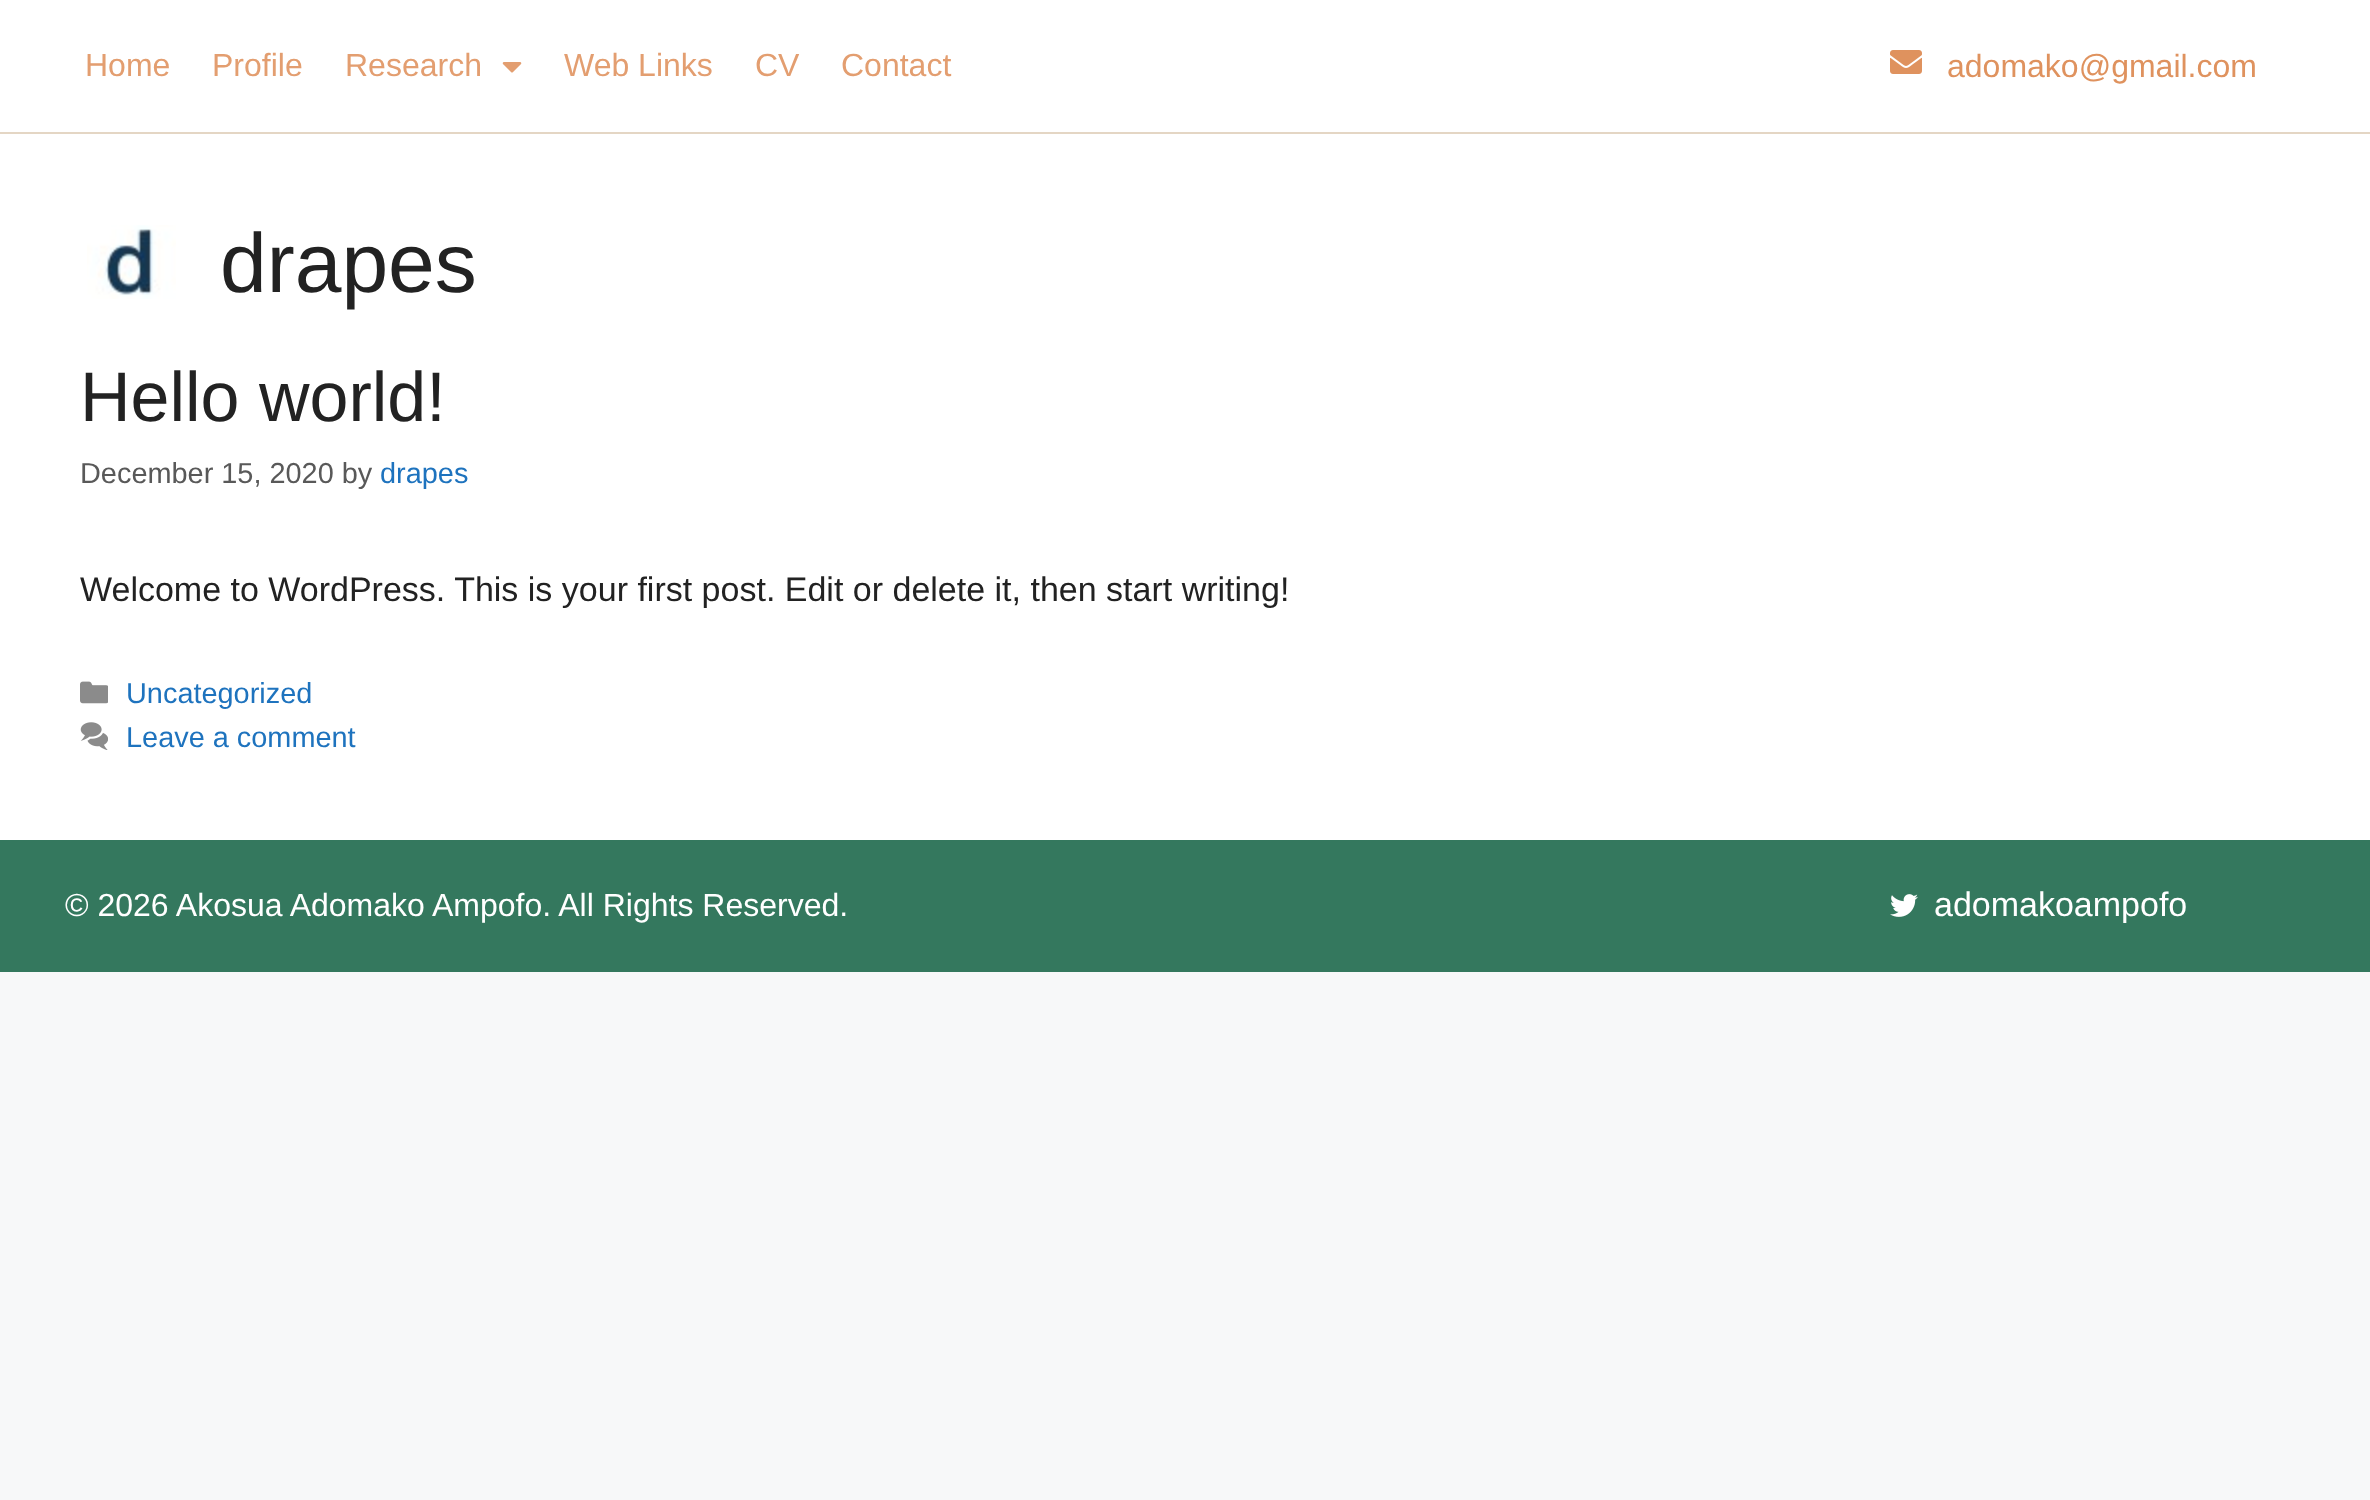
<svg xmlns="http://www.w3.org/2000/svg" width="2370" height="1500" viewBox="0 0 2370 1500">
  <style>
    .t1 { font: 32px Liberation Sans; fill: #e39e70; }
    .t2 { font: 32px Liberation Sans; fill: #df925e; }
    .t3 { font: 84px Liberation Sans; fill: #222; }
    .t4 { font: 70px Liberation Sans; fill: #222; }
    .t5 { font: 28.9px Liberation Sans; fill: #595959; }
    .t6 { font: 28.9px Liberation Sans; fill: #1e73be; }
    .t7 { font: 34px Liberation Sans; fill: #222; }
    .t8 { font: 32px Liberation Sans; fill: #fff; }
    .t9 { font: 34px Liberation Sans; fill: #fff; }
  </style>
  <rect width="100%" height="100%" fill="#f7f8f9"/>
  <rect x="0" y="0" width="2370" height="132" fill="#fff"/>
  <rect x="0" y="132" width="2370" height="2" fill="#e4d6c4"/>
  <text x="85" y="76" class="t1">Home</text>
  <text x="212" y="76" class="t1">Profile</text>
  <text x="345" y="76" class="t1">Research</text>
  <image x="502" y="62" width="20" height="11" href="images/1.png"/>
  <text x="564" y="76" class="t1">Web Links</text>
  <text x="755" y="76" class="t1">CV</text>
  <text x="841" y="76" class="t1">Contact</text>
  <image x="1890" y="50" width="32" height="24" href="images/2.png"/>
  <text x="1947" y="77" class="t2">adomako@gmail.com</text>
  <rect x="0" y="134" width="2370" height="706" fill="#fff"/>
  <image x="87" y="225" width="89" height="74" href="images/3.png"/>
  <text x="220" y="292" class="t3">drapes</text>
  <text x="80" y="421" class="t4">Hello world!</text>
  <text x="80" y="483" class="t5">December 15, 2020 by</text>
  <text x="380" y="483" class="t6">drapes</text>
  <text x="80" y="601" class="t7">Welcome to WordPress. This is your first post. Edit or delete it, then start writing!</text>
  <image x="80" y="681" width="28" height="23" href="images/4.png"/>
  <text x="126" y="703" class="t6">Uncategorized</text>
  <image x="80" y="722" width="28" height="28" href="images/5.png"/>
  <text x="126" y="747" class="t6">Leave a comment</text>
  <rect x="0" y="840" width="2370" height="132" fill="#34785e"/>
  <text x="65" y="916" class="t8">© 2026 Akosua Adomako Ampofo. All Rights Reserved.</text>
  <image x="1890" y="894" width="28" height="23" href="images/6.png"/>
  <text x="1934" y="916" class="t9">adomakoampofo</text>
</svg>
